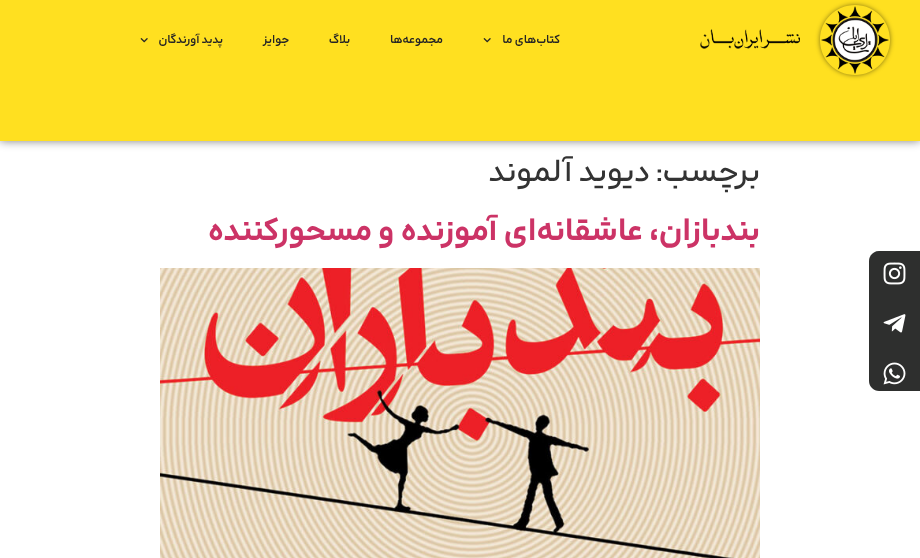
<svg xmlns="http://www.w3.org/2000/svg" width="920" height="558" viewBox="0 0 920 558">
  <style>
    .t1 { font: 600 12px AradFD; direction: rtl; fill: #252525; }
    .t2 { font: 500 32px AradFD; direction: rtl; fill: #333; }
    .t3 { font: bold 32px AradFD; direction: rtl; fill: #c36; }
  </style>
  <defs>
    <clipPath id="clip1"><path d="M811 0H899V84H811ZM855 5C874.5 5 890 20.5 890 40C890 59.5 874.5 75 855 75C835.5 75 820 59.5 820 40C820 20.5 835.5 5 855 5Z" clip-rule="evenodd"/></clipPath>
  </defs>
  <rect width="100%" height="100%" fill="#fff"/>
  <rect x="0" y="0" width="920" height="141" fill="#00000080" filter="blur(5px)"/>
  <rect x="0" y="0" width="920" height="141" fill="#ffe020"/>
  <g clip-path="url(#clip1)">
    <rect x="820" y="5" width="70" height="70" rx="35" fill="#00000080" filter="blur(2.5px)"/>
  </g>
  <image x="821" y="6" width="68" height="68" href="images/1.png"/>
  <image x="700" y="29" width="100" height="20" href="images/2.png"/>
  <text x="560" y="43" class="t1">کتاب‌های ما</text>
  <image x="483" y="38" width="8" height="5" href="images/3.png"/>
  <text x="443" y="43" class="t1">مجموعه‌ها</text>
  <text x="350" y="43" class="t1">بلاگ</text>
  <text x="289" y="43" class="t1">جوایز</text>
  <text x="223" y="43" class="t1">پدید آورندگان</text>
  <image x="140" y="38" width="8" height="5" href="images/3.png"/>
  <path d="M879 251H920V391H879C873.5 391 869 386.5 869 381V261C869 255.5 873.5 251 879 251Z" fill="#2e2f2e"/>
  <image x="883" y="262" width="23" height="23" href="images/4.png"/>
  <image x="883" y="314" width="23" height="19" href="images/5.png"/>
  <image x="883" y="362" width="23" height="23" href="images/6.png"/>
  <text x="760" y="181" class="t2">برچسب:</text>
  <text x="650" y="181" class="t2">دیوید آلموند</text>
  <text x="760" y="240" class="t3">بندبازان، عاشقانه‌ای آموزنده و مسحورکننده</text>
  <image x="160" y="268" width="600" height="290" href="images/7.png"/>
</svg>
